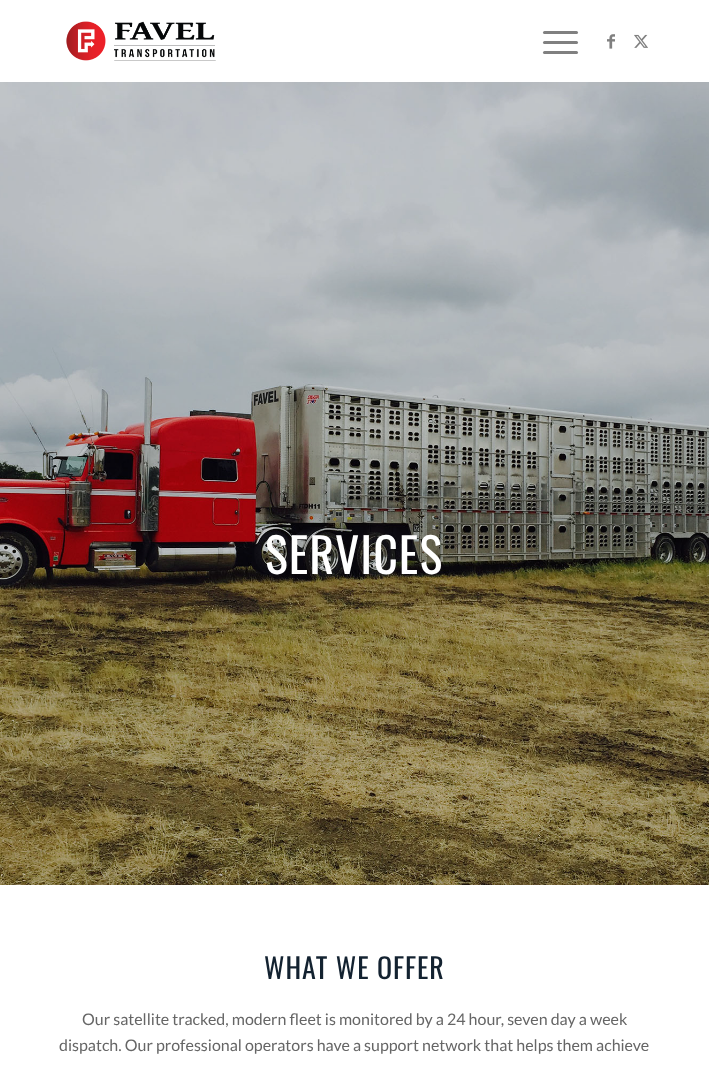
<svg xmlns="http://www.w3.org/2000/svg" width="709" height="1071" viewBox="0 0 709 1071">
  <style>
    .t1 { font: 48px Oswald; letter-spacing: 1px; fill: #fff; }
    .t2 { font: 28px Oswald; letter-spacing: 1px; fill: #132230; }
    .t3 { font: 16px Lato; fill: #666; }
  </style>
  <rect width="100%" height="100%" fill="#fff"/>
  <image x="66" y="21" width="150" height="40" href="images/1.png"/>
  <rect x="543" y="41" width="35" height="3" rx="1.5" fill="#808080"/>
  <rect x="543" y="31" width="35" height="3" rx="1.5" fill="#808080"/>
  <rect x="543" y="51" width="35" height="3" rx="1.5" fill="#808080"/>
  <image x="607" y="34" width="8" height="15" href="images/2.png"/>
  <image x="634" y="34" width="14" height="14" href="images/3.png"/>
  <image x="0" y="82" width="709" height="803" href="images/4.png"/>
  <text x="265" y="574" class="t1">SERVICES</text>
  <text x="264" y="979" class="t2">WHAT WE OFFER</text>
  <text x="82" y="1025" class="t3">Our satellite tracked, modern fleet is monitored by a 24 hour, seven day a week</text>
  <text x="59" y="1051" class="t3">dispatch. Our professional operators have a support network that helps them achieve</text>
</svg>
